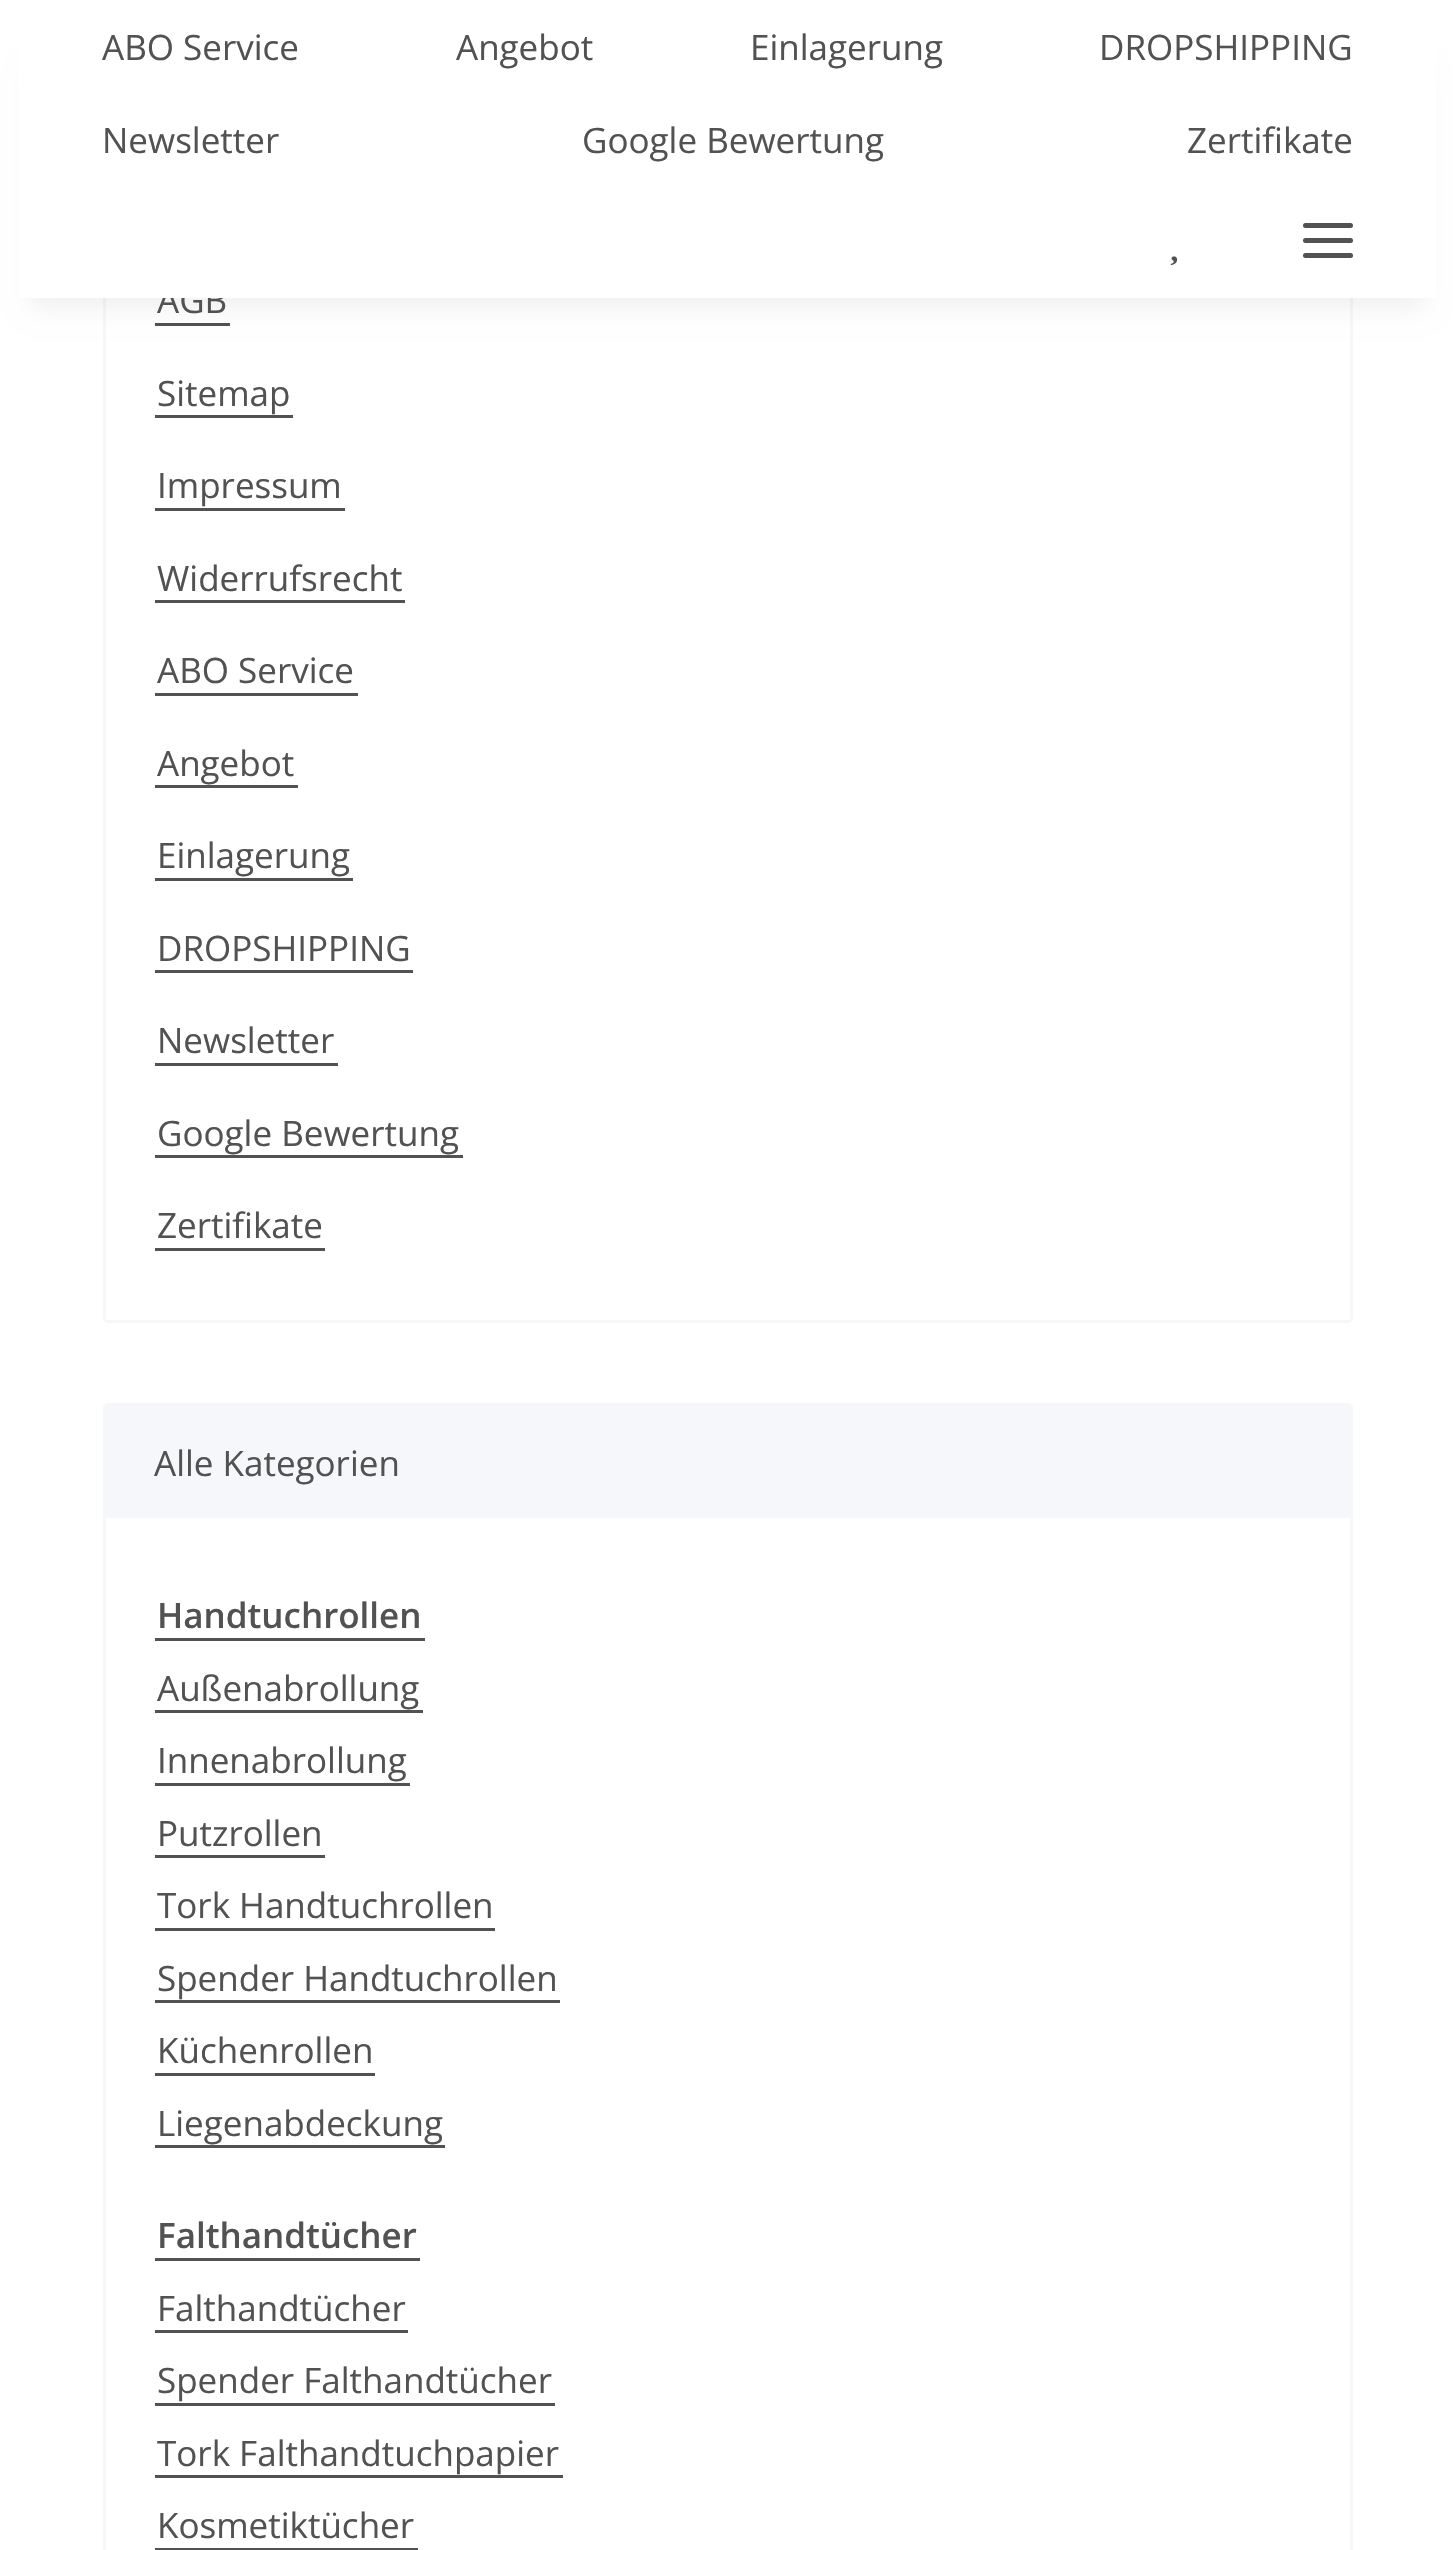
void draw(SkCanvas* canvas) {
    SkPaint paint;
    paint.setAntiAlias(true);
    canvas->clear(0xFFFFFFFF);
    paint.setStyle(SkPaint::kStroke_Style);
    paint.setStrokeWidth(3);
    paint.setColor(0xFFF5F7FA);
    canvas->drawRoundRect(SkRect::MakeXYWH(104.5f, -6.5f, 1247, 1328), 3.5f, 3.5f, paint);
    paint.setStyle(SkPaint::kFill_Style);
    paint.setColor(0xFF525252);
    canvas->drawRect(SkRect::MakeXYWH(155, 323, 75, 3), paint);
    paint.setColor(0x0F000000);
    paint.setMaskFilter(SkMaskFilter::MakeBlur(kNormal_SkBlurStyle, 11));
    canvas->drawRect(SkRect::MakeXYWH(30, 70, 1395, 238), paint);
    paint.setMaskFilter(nullptr);
    SkFont font1(fontMgr->matchFamilyStyle("Open Sans", SkFontStyle::Normal()), 35);
    font1.setSubpixel(true);
    paint.setColor(0xFF525252);
    canvas->drawString("AGB", 157, 313, font1, paint);
    paint.setColor(0xFFFFFFFF);
    canvas->drawRect(SkRect::MakeXYWH(19, 0, 1417, 298), paint);
    paint.setColor(0xFF525252);
    canvas->drawString("ABO Service", 102, 60, font1, paint);
    canvas->drawString("Angebot", 456, 60, font1, paint);
    canvas->drawString("Einlagerung", 750, 60, font1, paint);
    canvas->drawString("DROPSHIPPING", 1099, 60, font1, paint);
    canvas->drawString("Newsletter", 102, 153, font1, paint);
    canvas->drawString("Google Bewertung", 582, 153, font1, paint);
    canvas->drawString("Zertifikate", 1187, 153, font1, paint);
    canvas->drawRoundRect(SkRect::MakeXYWH(1303, 238, 50, 5), 2.5f, 2.5f, paint);
    canvas->drawRoundRect(SkRect::MakeXYWH(1303, 223, 50, 5), 2.5f, 2.5f, paint);
    canvas->drawRoundRect(SkRect::MakeXYWH(1303, 253, 50, 5), 2.5f, 2.5f, paint);
    canvas->drawImageRect(SkImages::DeferredFromEncodedData(SkData::MakeFromFileName("img1.png")), SkRect::MakeXYWH(1170, 256, 8, 10), SkSamplingOptions());
    canvas->drawString("Sitemap", 157, 406, font1, paint);
    canvas->drawRect(SkRect::MakeXYWH(155, 415, 138, 3), paint);
    canvas->drawString("Impressum", 157, 498, font1, paint);
    canvas->drawRect(SkRect::MakeXYWH(155, 508, 190, 3), paint);
    canvas->drawString("Widerrufsrecht", 157, 591, font1, paint);
    canvas->drawRect(SkRect::MakeXYWH(155, 600, 250, 3), paint);
    canvas->drawString("ABO Service", 157, 683, font1, paint);
    canvas->drawRect(SkRect::MakeXYWH(155, 693, 203, 3), paint);
    canvas->drawString("Angebot", 157, 776, font1, paint);
    canvas->drawRect(SkRect::MakeXYWH(155, 785, 143, 3), paint);
    canvas->drawString("Einlagerung", 157, 868, font1, paint);
    canvas->drawRect(SkRect::MakeXYWH(155, 878, 198, 3), paint);
    canvas->drawString("DROPSHIPPING", 157, 961, font1, paint);
    canvas->drawRect(SkRect::MakeXYWH(155, 970, 258, 3), paint);
    canvas->drawString("Newsletter", 157, 1053, font1, paint);
    canvas->drawRect(SkRect::MakeXYWH(155, 1063, 183, 3), paint);
    canvas->drawString("Google Bewertung", 157, 1146, font1, paint);
    canvas->drawRect(SkRect::MakeXYWH(155, 1155, 308, 3), paint);
    canvas->drawString("Zertifikate", 157, 1238, font1, paint);
    canvas->drawRect(SkRect::MakeXYWH(155, 1248, 170, 3), paint);
    paint.setStyle(SkPaint::kStroke_Style);
    paint.setColor(0xFFF5F7FA);
    canvas->drawRoundRect(SkRect::MakeXYWH(104.5f, 1404.5f, 1247, 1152), 3.5f, 3.5f, paint);
    paint.setStyle(SkPaint::kFill_Style);
    canvas->drawPath(SkPathBuilder().moveTo(107.5f, 1405).lineTo(1347.5f, 1405).cubicTo(1349, 1405, 1350, 1406, 1350, 1407.5f).lineTo(1350, 1518).lineTo(105, 1518).lineTo(105, 1407.5f).cubicTo(105, 1406, 106, 1405, 107.5f, 1405).close().detach(), paint);
    paint.setColor(0xFF525252);
    canvas->drawString("Alle Kategorien", 154, 1476, font1, paint);
    SkFont font2(fontMgr->matchFamilyStyle("Open Sans", SkFontStyle(600, SkFontStyle::kNormal_Width, SkFontStyle::kUpright_Slant)), 35);
    font2.setSubpixel(true);
    canvas->drawString("Handtuchrollen", 157, 1628, font2, paint);
    canvas->drawRect(SkRect::MakeXYWH(155, 1638, 270, 3), paint);
    canvas->drawString("Außenabrollung", 157, 1701, font1, paint);
    canvas->drawRect(SkRect::MakeXYWH(155, 1710, 268, 3), paint);
    canvas->drawString("Innenabrollung", 157, 1773, font1, paint);
    canvas->drawRect(SkRect::MakeXYWH(155, 1783, 255, 3), paint);
    canvas->drawString("Putzrollen", 157, 1846, font1, paint);
    canvas->drawRect(SkRect::MakeXYWH(155, 1855, 170, 3), paint);
    canvas->drawString("Tork Handtuchrollen", 157, 1918, font1, paint);
    canvas->drawRect(SkRect::MakeXYWH(155, 1928, 340, 3), paint);
    canvas->drawString("Spender Handtuchrollen", 157, 1991, font1, paint);
    canvas->drawRect(SkRect::MakeXYWH(155, 2000, 405, 3), paint);
    canvas->drawString("Küchenrollen", 157, 2063, font1, paint);
    canvas->drawRect(SkRect::MakeXYWH(155, 2073, 220, 3), paint);
    canvas->drawString("Liegenabdeckung", 157, 2136, font1, paint);
    canvas->drawRect(SkRect::MakeXYWH(155, 2145, 290, 3), paint);
    canvas->drawString("Falthandtücher", 157, 2248, font2, paint);
    canvas->drawRect(SkRect::MakeXYWH(155, 2258, 265, 3), paint);
    canvas->drawString("Falthandtücher", 157, 2321, font1, paint);
    canvas->drawRect(SkRect::MakeXYWH(155, 2330, 253, 3), paint);
    canvas->drawString("Spender Falthandtücher", 157, 2393, font1, paint);
    canvas->drawRect(SkRect::MakeXYWH(155, 2403, 400, 3), paint);
    canvas->drawString("Tork Falthandtuchpapier", 157, 2466, font1, paint);
    canvas->drawRect(SkRect::MakeXYWH(155, 2475, 408, 3), paint);
    canvas->drawString("Kosmetiktücher", 157, 2538, font1, paint);
    canvas->drawRect(SkRect::MakeXYWH(155, 2548, 263, 2), paint);
}
